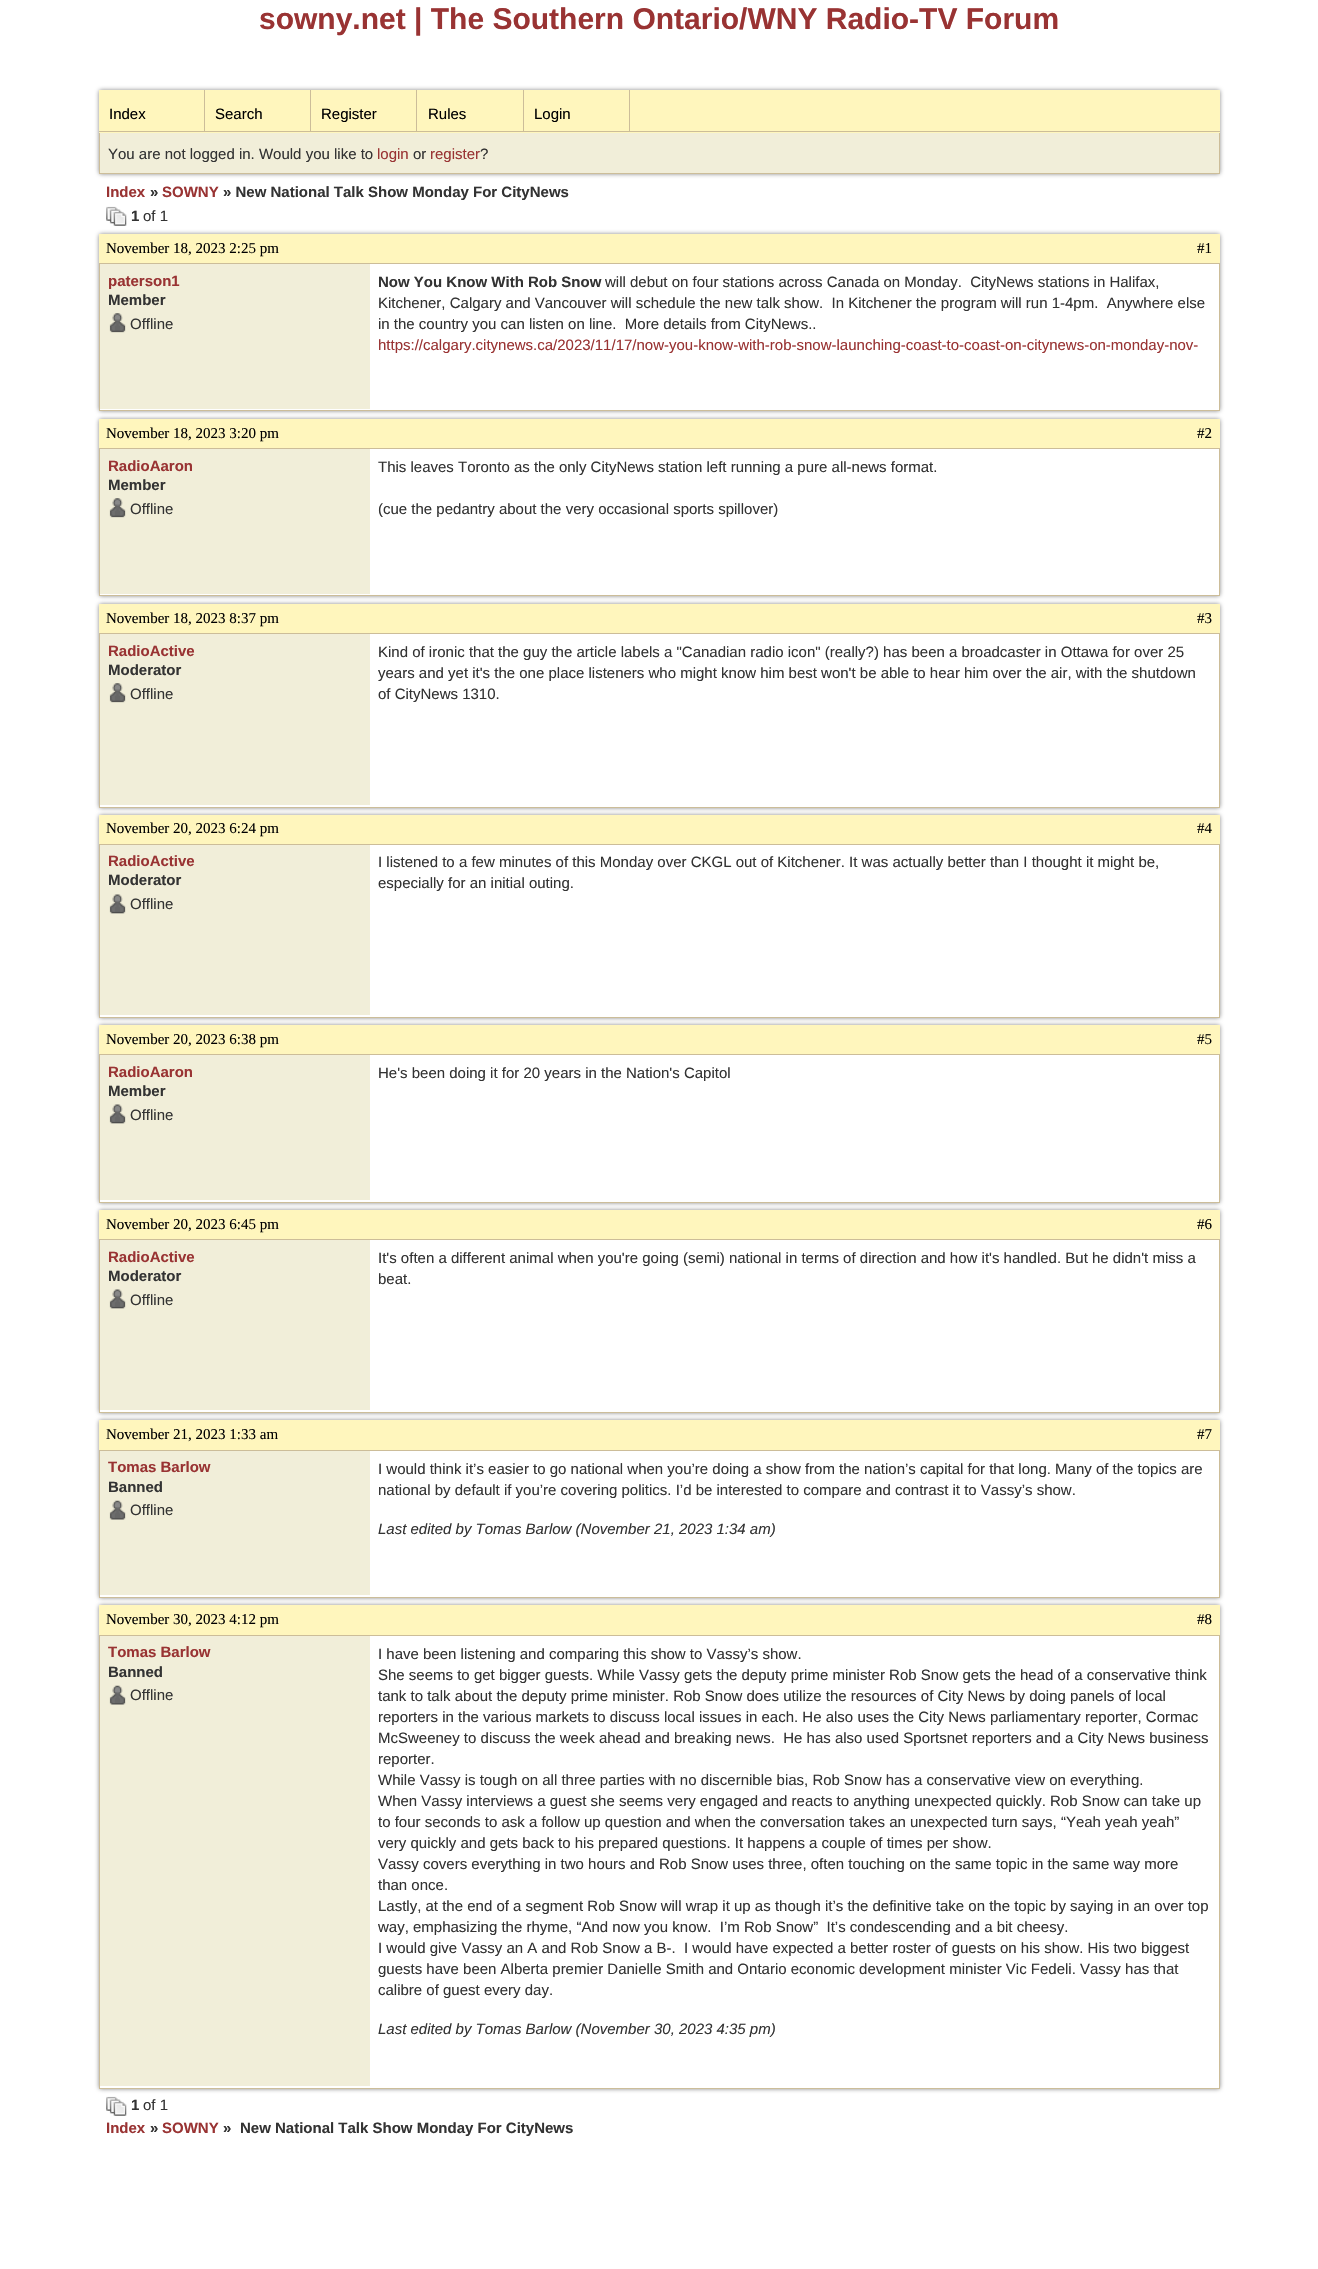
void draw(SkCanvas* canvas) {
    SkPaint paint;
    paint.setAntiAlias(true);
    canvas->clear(0xFFFFFFFF);
    SkFont font1(fontMgr->matchFamilyStyle("Liberation Sans", SkFontStyle::Bold()), 30);
    font1.setSubpixel(true);
    paint.setColor(0xFF993333);
    canvas->drawString("sowny.net | The Southern Ontario/WNY Radio-TV Forum", 259, 29, font1, paint);
    paint.setColor(0xFF888888);
    paint.setMaskFilter(SkMaskFilter::MakeBlur(kNormal_SkBlurStyle, 2));
    canvas->drawRoundRect(SkRect::MakeXYWH(99, 90, 1121, 84), 2.5f, 2.5f, paint);
    paint.setMaskFilter(nullptr);
    paint.setColor(0xFFF1EED9);
    canvas->drawRect(SkRect::MakeXYWH(100, 133, 1119, 40), paint);
    paint.setStyle(SkPaint::kStroke_Style);
    paint.setStrokeWidth(1);
    paint.setColor(0xFFCCBD99);
    canvas->drawRect(SkRect::MakeXYWH(99.5f, 90.5f, 1120, 83), paint);
    paint.setStyle(SkPaint::kFill_Style);
    paint.setColor(0xFFFFF6BD);
    canvas->drawRect(SkRect::MakeXYWH(99, 90, 1121, 43), paint);
    paint.setColor(0xFFCCBD99);
    canvas->drawRect(SkRect::MakeXYWH(99, 131, 1121, 1), paint);
    canvas->drawRect(SkRect::MakeXYWH(204, 90, 1, 41), paint);
    SkFont font2(fontMgr->matchFamilyStyle("Liberation Sans", SkFontStyle::Normal()), 15);
    font2.setSubpixel(true);
    paint.setColor(0xFF000000);
    canvas->drawString("Index", 109, 119, font2, paint);
    paint.setColor(0xFFCCBD99);
    canvas->drawRect(SkRect::MakeXYWH(310, 90, 1, 41), paint);
    paint.setColor(0xFF000000);
    canvas->drawString("Search", 215, 119, font2, paint);
    paint.setColor(0xFFCCBD99);
    canvas->drawRect(SkRect::MakeXYWH(416, 90, 1, 41), paint);
    paint.setColor(0xFF000000);
    canvas->drawString("Register", 321, 119, font2, paint);
    paint.setColor(0xFFCCBD99);
    canvas->drawRect(SkRect::MakeXYWH(523, 90, 1, 41), paint);
    paint.setColor(0xFF000000);
    canvas->drawString("Rules", 428, 119, font2, paint);
    paint.setColor(0xFFCCBD99);
    canvas->drawRect(SkRect::MakeXYWH(629, 90, 1, 41), paint);
    paint.setColor(0xFF000000);
    canvas->drawString("Login", 534, 119, font2, paint);
    paint.setColor(0xFF333333);
    canvas->drawString("You are not logged in. Would you like to", 108, 159, font2, paint);
    paint.setColor(0xFF993333);
    canvas->drawString("login", 377, 159, font2, paint);
    paint.setColor(0xFF333333);
    canvas->drawString("or", 413, 159, font2, paint);
    paint.setColor(0xFF993333);
    canvas->drawString("register", 430, 159, font2, paint);
    paint.setColor(0xFF333333);
    canvas->drawString("?", 480, 159, font2, paint);
    SkFont font3(fontMgr->matchFamilyStyle("Liberation Sans", SkFontStyle::Bold()), 15);
    font3.setSubpixel(true);
    paint.setColor(0xFF993333);
    canvas->drawString("Index", 106, 197, font3, paint);
    paint.setColor(0xFF333333);
    canvas->drawString("»", 150, 197, font3, paint);
    paint.setColor(0xFF993333);
    canvas->drawString("SOWNY", 162, 197, font3, paint);
    paint.setColor(0xFF333333);
    canvas->drawString("» New National Talk Show Monday For CityNews", 223, 197, font3, paint);
    canvas->drawImageRect(SkImages::DeferredFromEncodedData(SkData::MakeFromFileName("img1.png")), SkRect::MakeXYWH(106, 206, 21, 20), SkSamplingOptions());
    canvas->drawString("1", 131, 221, font3, paint);
    canvas->drawString("of 1", 143, 221, font2, paint);
    paint.setColor(0xFF888888);
    paint.setMaskFilter(SkMaskFilter::MakeBlur(kNormal_SkBlurStyle, 2));
    canvas->drawRoundRect(SkRect::MakeXYWH(99, 234, 1121, 177), 2.5f, 2.5f, paint);
    paint.setMaskFilter(nullptr);
    paint.setColor(0xFFFFF6BD);
    canvas->drawRect(SkRect::MakeXYWH(99, 234, 1121, 29), paint);
    SkFont font4(fontMgr->matchFamilyStyle("Liberation Serif", SkFontStyle::Normal()), 15);
    font4.setSubpixel(true);
    paint.setColor(0xFF000000);
    canvas->drawString("November 18, 2023 2:25 pm", 106, 253, font4, paint);
    canvas->drawString("#1", 1197, 253, font4, paint);
    paint.setColor(0xFFFFFFFF);
    canvas->drawRect(SkRect::MakeXYWH(99.5f, 263.5f, 1120, 147), paint);
    paint.setStyle(SkPaint::kStroke_Style);
    paint.setColor(0xFFCCBD99);
    canvas->drawRect(SkRect::MakeXYWH(99.5f, 263.5f, 1120, 147), paint);
    paint.setStyle(SkPaint::kFill_Style);
    paint.setColor(0xFFF1EED9);
    canvas->drawRect(SkRect::MakeXYWH(100, 264, 270, 145), paint);
    paint.setColor(0xFF993333);
    canvas->drawString("paterson1", 108, 286, font3, paint);
    paint.setColor(0xFF333333);
    canvas->drawString("Member", 108, 305, font3, paint);
    canvas->drawImageRect(SkImages::DeferredFromEncodedData(SkData::MakeFromFileName("img2.png")), SkRect::MakeXYWH(109, 313, 17, 20), SkSamplingOptions());
    canvas->drawString("Offline", 130, 329, font2, paint);
    canvas->drawString("Now You Know With Rob Snow", 378, 287, font3, paint);
    canvas->drawString("will debut on four stations across Canada on Monday.  CityNews stations in Halifax,", 605, 287, font2, paint);
    canvas->drawString("Kitchener, Calgary and Vancouver will schedule the new talk show.  In Kitchener the program will run 1-4pm.  Anywhere else", 378, 308, font2, paint);
    canvas->drawString("in the country you can listen on line.  More details from CityNews..", 378, 329, font2, paint);
    paint.setColor(0xFF993333);
    canvas->drawString("https://calgary.citynews.ca/2023/11/17/now-you-know-with-rob-snow-launching-coast-to-coast-on-citynews-on-monday-nov-", 378, 350, font2, paint);
    paint.setColor(0xFF888888);
    paint.setMaskFilter(SkMaskFilter::MakeBlur(kNormal_SkBlurStyle, 2));
    canvas->drawRoundRect(SkRect::MakeXYWH(99, 419, 1121, 177), 2.5f, 2.5f, paint);
    paint.setMaskFilter(nullptr);
    paint.setColor(0xFFFFF6BD);
    canvas->drawRect(SkRect::MakeXYWH(99, 419, 1121, 29), paint);
    paint.setColor(0xFF000000);
    canvas->drawString("November 18, 2023 3:20 pm", 106, 438, font4, paint);
    canvas->drawString("#2", 1197, 438, font4, paint);
    paint.setColor(0xFFFFFFFF);
    canvas->drawRect(SkRect::MakeXYWH(99.5f, 448.5f, 1120, 147), paint);
    paint.setStyle(SkPaint::kStroke_Style);
    paint.setColor(0xFFCCBD99);
    canvas->drawRect(SkRect::MakeXYWH(99.5f, 448.5f, 1120, 147), paint);
    paint.setStyle(SkPaint::kFill_Style);
    paint.setColor(0xFFF1EED9);
    canvas->drawRect(SkRect::MakeXYWH(100, 449, 270, 145), paint);
    paint.setColor(0xFF993333);
    canvas->drawString("RadioAaron", 108, 471, font3, paint);
    paint.setColor(0xFF333333);
    canvas->drawString("Member", 108, 490, font3, paint);
    canvas->drawImageRect(SkImages::DeferredFromEncodedData(SkData::MakeFromFileName("img2.png")), SkRect::MakeXYWH(109, 498, 17, 20), SkSamplingOptions());
    canvas->drawString("Offline", 130, 514, font2, paint);
    canvas->drawString("This leaves Toronto as the only CityNews station left running a pure all-news format.", 378, 472, font2, paint);
    canvas->drawString("(cue the pedantry about the very occasional sports spillover)", 378, 514, font2, paint);
    paint.setColor(0xFF888888);
    paint.setMaskFilter(SkMaskFilter::MakeBlur(kNormal_SkBlurStyle, 2));
    canvas->drawRoundRect(SkRect::MakeXYWH(99, 604, 1121, 204), 2.5f, 2.5f, paint);
    paint.setMaskFilter(nullptr);
    paint.setColor(0xFFFFF6BD);
    canvas->drawRect(SkRect::MakeXYWH(99, 604, 1121, 29), paint);
    paint.setColor(0xFF000000);
    canvas->drawString("November 18, 2023 8:37 pm", 106, 623, font4, paint);
    canvas->drawString("#3", 1197, 623, font4, paint);
    paint.setColor(0xFFFFFFFF);
    canvas->drawRect(SkRect::MakeXYWH(99.5f, 633.5f, 1120, 174), paint);
    paint.setStyle(SkPaint::kStroke_Style);
    paint.setColor(0xFFCCBD99);
    canvas->drawRect(SkRect::MakeXYWH(99.5f, 633.5f, 1120, 174), paint);
    paint.setStyle(SkPaint::kFill_Style);
    paint.setColor(0xFFF1EED9);
    canvas->drawRect(SkRect::MakeXYWH(100, 634, 270, 171), paint);
    paint.setColor(0xFF993333);
    canvas->drawString("RadioActive", 108, 656, font3, paint);
    paint.setColor(0xFF333333);
    canvas->drawString("Moderator", 108, 675, font3, paint);
    canvas->drawImageRect(SkImages::DeferredFromEncodedData(SkData::MakeFromFileName("img2.png")), SkRect::MakeXYWH(109, 683, 17, 20), SkSamplingOptions());
    canvas->drawString("Offline", 130, 699, font2, paint);
    canvas->drawString("Kind of ironic that the guy the article labels a \"Canadian radio icon\" (really?) has been a broadcaster in Ottawa for over 25", 378, 657, font2, paint);
    canvas->drawString("years and yet it's the one place listeners who might know him best won't be able to hear him over the air, with the shutdown", 378, 678, font2, paint);
    canvas->drawString("of CityNews 1310.", 378, 699, font2, paint);
    paint.setColor(0xFF888888);
    paint.setMaskFilter(SkMaskFilter::MakeBlur(kNormal_SkBlurStyle, 2));
    canvas->drawRoundRect(SkRect::MakeXYWH(99, 815, 1121, 203), 2.5f, 2.5f, paint);
    paint.setMaskFilter(nullptr);
    paint.setColor(0xFFFFF6BD);
    canvas->drawRect(SkRect::MakeXYWH(99, 815, 1121, 29), paint);
    paint.setColor(0xFF000000);
    canvas->drawString("November 20, 2023 6:24 pm", 106, 833, font4, paint);
    canvas->drawString("#4", 1197, 833, font4, paint);
    paint.setColor(0xFFFFFFFF);
    canvas->drawRect(SkRect::MakeXYWH(99.5f, 844.5f, 1120, 173), paint);
    paint.setStyle(SkPaint::kStroke_Style);
    paint.setColor(0xFFCCBD99);
    canvas->drawRect(SkRect::MakeXYWH(99.5f, 844.5f, 1120, 173), paint);
    paint.setStyle(SkPaint::kFill_Style);
    paint.setColor(0xFFF1EED9);
    canvas->drawRect(SkRect::MakeXYWH(100, 845, 270, 170), paint);
    paint.setColor(0xFF993333);
    canvas->drawString("RadioActive", 108, 866, font3, paint);
    paint.setColor(0xFF333333);
    canvas->drawString("Moderator", 108, 885, font3, paint);
    canvas->drawImageRect(SkImages::DeferredFromEncodedData(SkData::MakeFromFileName("img3.png")), SkRect::MakeXYWH(109, 894, 17, 20), SkSamplingOptions());
    canvas->drawString("Offline", 130, 909, font2, paint);
    canvas->drawString("I listened to a few minutes of this Monday over CKGL out of Kitchener. It was actually better than I thought it might be,", 378, 867, font2, paint);
    canvas->drawString("especially for an initial outing.", 378, 888, font2, paint);
    paint.setColor(0xFF888888);
    paint.setMaskFilter(SkMaskFilter::MakeBlur(kNormal_SkBlurStyle, 2));
    canvas->drawRoundRect(SkRect::MakeXYWH(99, 1025, 1121, 178), 2.5f, 2.5f, paint);
    paint.setMaskFilter(nullptr);
    paint.setColor(0xFFFFF6BD);
    canvas->drawRect(SkRect::MakeXYWH(99, 1025, 1121, 29), paint);
    paint.setColor(0xFF000000);
    canvas->drawString("November 20, 2023 6:38 pm", 106, 1044, font4, paint);
    canvas->drawString("#5", 1197, 1044, font4, paint);
    paint.setColor(0xFFFFFFFF);
    canvas->drawRect(SkRect::MakeXYWH(99.5f, 1054.5f, 1120, 148), paint);
    paint.setStyle(SkPaint::kStroke_Style);
    paint.setColor(0xFFCCBD99);
    canvas->drawRect(SkRect::MakeXYWH(99.5f, 1054.5f, 1120, 148), paint);
    paint.setStyle(SkPaint::kFill_Style);
    paint.setColor(0xFFF1EED9);
    canvas->drawRect(SkRect::MakeXYWH(100, 1055, 270, 145), paint);
    paint.setColor(0xFF993333);
    canvas->drawString("RadioAaron", 108, 1077, font3, paint);
    paint.setColor(0xFF333333);
    canvas->drawString("Member", 108, 1096, font3, paint);
    canvas->drawImageRect(SkImages::DeferredFromEncodedData(SkData::MakeFromFileName("img3.png")), SkRect::MakeXYWH(109, 1104, 17, 20), SkSamplingOptions());
    canvas->drawString("Offline", 130, 1120, font2, paint);
    canvas->drawString("He's been doing it for 20 years in the Nation's Capitol", 378, 1078, font2, paint);
    paint.setColor(0xFF888888);
    paint.setMaskFilter(SkMaskFilter::MakeBlur(kNormal_SkBlurStyle, 2));
    canvas->drawRoundRect(SkRect::MakeXYWH(99, 1210, 1121, 203), 2.5f, 2.5f, paint);
    paint.setMaskFilter(nullptr);
    paint.setColor(0xFFFFF6BD);
    canvas->drawRect(SkRect::MakeXYWH(99, 1210, 1121, 29), paint);
    paint.setColor(0xFF000000);
    canvas->drawString("November 20, 2023 6:45 pm", 106, 1229, font4, paint);
    canvas->drawString("#6", 1197, 1229, font4, paint);
    paint.setColor(0xFFFFFFFF);
    canvas->drawRect(SkRect::MakeXYWH(99.5f, 1239.5f, 1120, 173), paint);
    paint.setStyle(SkPaint::kStroke_Style);
    paint.setColor(0xFFCCBD99);
    canvas->drawRect(SkRect::MakeXYWH(99.5f, 1239.5f, 1120, 173), paint);
    paint.setStyle(SkPaint::kFill_Style);
    paint.setColor(0xFFF1EED9);
    canvas->drawRect(SkRect::MakeXYWH(100, 1240, 270, 170), paint);
    paint.setColor(0xFF993333);
    canvas->drawString("RadioActive", 108, 1262, font3, paint);
    paint.setColor(0xFF333333);
    canvas->drawString("Moderator", 108, 1281, font3, paint);
    canvas->drawImageRect(SkImages::DeferredFromEncodedData(SkData::MakeFromFileName("img3.png")), SkRect::MakeXYWH(109, 1289, 17, 20), SkSamplingOptions());
    canvas->drawString("Offline", 130, 1305, font2, paint);
    canvas->drawString("It's often a different animal when you're going (semi) national in terms of direction and how it's handled. But he didn't miss a", 378, 1263, font2, paint);
    canvas->drawString("beat.", 378, 1284, font2, paint);
    paint.setColor(0xFF888888);
    paint.setMaskFilter(SkMaskFilter::MakeBlur(kNormal_SkBlurStyle, 2));
    canvas->drawRoundRect(SkRect::MakeXYWH(99, 1420, 1121, 178), 2.5f, 2.5f, paint);
    paint.setMaskFilter(nullptr);
    paint.setColor(0xFFFFF6BD);
    canvas->drawRect(SkRect::MakeXYWH(99, 1420, 1121, 30), paint);
    paint.setColor(0xFF000000);
    canvas->drawString("November 21, 2023 1:33 am", 106, 1439, font4, paint);
    canvas->drawString("#7", 1197, 1439, font4, paint);
    paint.setColor(0xFFFFFFFF);
    canvas->drawRect(SkRect::MakeXYWH(99.5f, 1450.5f, 1120, 147), paint);
    paint.setStyle(SkPaint::kStroke_Style);
    paint.setColor(0xFFCCBD99);
    canvas->drawRect(SkRect::MakeXYWH(99.5f, 1450.5f, 1120, 147), paint);
    paint.setStyle(SkPaint::kFill_Style);
    paint.setColor(0xFFF1EED9);
    canvas->drawRect(SkRect::MakeXYWH(100, 1451, 270, 144), paint);
    paint.setColor(0xFF993333);
    canvas->drawString("Tomas Barlow", 108, 1472, font3, paint);
    paint.setColor(0xFF333333);
    canvas->drawString("Banned", 108, 1492, font3, paint);
    canvas->drawImageRect(SkImages::DeferredFromEncodedData(SkData::MakeFromFileName("img4.png")), SkRect::MakeXYWH(109, 1500, 17, 20), SkSamplingOptions());
    canvas->drawString("Offline", 130, 1515, font2, paint);
    canvas->drawString("I would think it’s easier to go national when you’re doing a show from the nation’s capital for that long. Many of the topics are", 378, 1474, font2, paint);
    canvas->drawString("national by default if you’re covering politics. I’d be interested to compare and contrast it to Vassy’s show.", 378, 1495, font2, paint);
    SkFont font5(fontMgr->matchFamilyStyle("Liberation Sans", SkFontStyle::Italic()), 15);
    font5.setSubpixel(true);
    canvas->drawString("Last edited by Tomas Barlow (November 21, 2023 1:34 am)", 378, 1534, font5, paint);
    paint.setColor(0xFF888888);
    paint.setMaskFilter(SkMaskFilter::MakeBlur(kNormal_SkBlurStyle, 2));
    canvas->drawRoundRect(SkRect::MakeXYWH(99, 1605, 1121, 484), 2.5f, 2.5f, paint);
    paint.setMaskFilter(nullptr);
    paint.setColor(0xFFFFF6BD);
    canvas->drawRect(SkRect::MakeXYWH(99, 1605, 1121, 30), paint);
    paint.setColor(0xFF000000);
    canvas->drawString("November 30, 2023 4:12 pm", 106, 1624, font4, paint);
    canvas->drawString("#8", 1197, 1624, font4, paint);
    paint.setColor(0xFFFFFFFF);
    canvas->drawRect(SkRect::MakeXYWH(99.5f, 1635.5f, 1120, 453), paint);
    paint.setStyle(SkPaint::kStroke_Style);
    paint.setColor(0xFFCCBD99);
    canvas->drawRect(SkRect::MakeXYWH(99.5f, 1635.5f, 1120, 453), paint);
    paint.setStyle(SkPaint::kFill_Style);
    paint.setColor(0xFFF1EED9);
    canvas->drawRect(SkRect::MakeXYWH(100, 1636, 270, 450), paint);
    paint.setColor(0xFF993333);
    canvas->drawString("Tomas Barlow", 108, 1657, font3, paint);
    paint.setColor(0xFF333333);
    canvas->drawString("Banned", 108, 1677, font3, paint);
    canvas->drawImageRect(SkImages::DeferredFromEncodedData(SkData::MakeFromFileName("img4.png")), SkRect::MakeXYWH(109, 1685, 17, 20), SkSamplingOptions());
    canvas->drawString("Offline", 130, 1700, font2, paint);
    canvas->drawString("I have been listening and comparing this show to Vassy’s show.", 378, 1659, font2, paint);
    canvas->drawString("She seems to get bigger guests. While Vassy gets the deputy prime minister Rob Snow gets the head of a conservative think", 378, 1680, font2, paint);
    canvas->drawString("tank to talk about the deputy prime minister. Rob Snow does utilize the resources of City News by doing panels of local", 378, 1701, font2, paint);
    canvas->drawString("reporters in the various markets to discuss local issues in each. He also uses the City News parliamentary reporter, Cormac", 378, 1722, font2, paint);
    canvas->drawString("McSweeney to discuss the week ahead and breaking news.  He has also used Sportsnet reporters and a City News business", 378, 1743, font2, paint);
    canvas->drawString("reporter.", 378, 1764, font2, paint);
    canvas->drawString("While Vassy is tough on all three parties with no discernible bias, Rob Snow has a conservative view on everything.", 378, 1785, font2, paint);
    canvas->drawString("When Vassy interviews a guest she seems very engaged and reacts to anything unexpected quickly. Rob Snow can take up", 378, 1806, font2, paint);
    canvas->drawString("to four seconds to ask a follow up question and when the conversation takes an unexpected turn says, “Yeah yeah yeah”", 378, 1827, font2, paint);
    canvas->drawString("very quickly and gets back to his prepared questions. It happens a couple of times per show.", 378, 1848, font2, paint);
    canvas->drawString("Vassy covers everything in two hours and Rob Snow uses three, often touching on the same topic in the same way more", 378, 1869, font2, paint);
    canvas->drawString("than once.", 378, 1890, font2, paint);
    canvas->drawString("Lastly, at the end of a segment Rob Snow will wrap it up as though it’s the definitive take on the topic by saying in an over top", 378, 1911, font2, paint);
    canvas->drawString("way, emphasizing the rhyme, “And now you know.  I’m Rob Snow”  It’s condescending and a bit cheesy.", 378, 1932, font2, paint);
    canvas->drawString("I would give Vassy an A and Rob Snow a B-.  I would have expected a better roster of guests on his show. His two biggest", 378, 1953, font2, paint);
    canvas->drawString("guests have been Alberta premier Danielle Smith and Ontario economic development minister Vic Fedeli. Vassy has that", 378, 1974, font2, paint);
    canvas->drawString("calibre of guest every day.", 378, 1995, font2, paint);
    canvas->drawString("Last edited by Tomas Barlow (November 30, 2023 4:35 pm)", 378, 2034, font5, paint);
    canvas->drawImageRect(SkImages::DeferredFromEncodedData(SkData::MakeFromFileName("img1.png")), SkRect::MakeXYWH(106, 2096, 21, 20), SkSamplingOptions());
    canvas->drawString("1", 131, 2110, font3, paint);
    canvas->drawString("of 1", 143, 2110, font2, paint);
    paint.setColor(0xFF993333);
    canvas->drawString("Index", 106, 2133, font3, paint);
    paint.setColor(0xFF333333);
    canvas->drawString("»", 150, 2133, font3, paint);
    paint.setColor(0xFF993333);
    canvas->drawString("SOWNY", 162, 2133, font3, paint);
    paint.setColor(0xFF333333);
    canvas->drawString("»", 223, 2133, font3, paint);
    canvas->drawString("New National Talk Show Monday For CityNews", 240, 2133, font3, paint);
}
